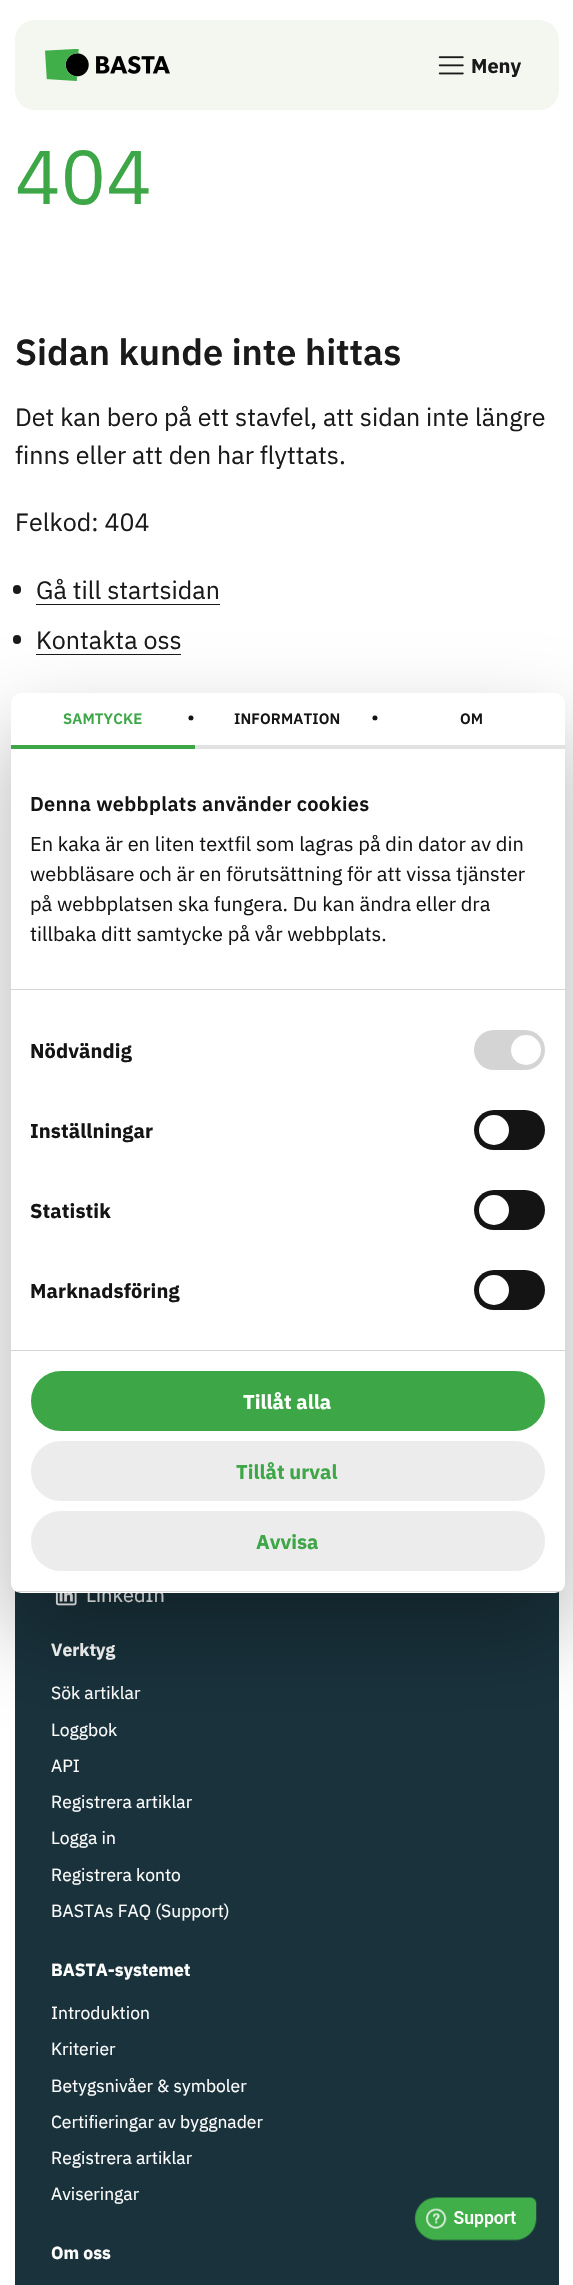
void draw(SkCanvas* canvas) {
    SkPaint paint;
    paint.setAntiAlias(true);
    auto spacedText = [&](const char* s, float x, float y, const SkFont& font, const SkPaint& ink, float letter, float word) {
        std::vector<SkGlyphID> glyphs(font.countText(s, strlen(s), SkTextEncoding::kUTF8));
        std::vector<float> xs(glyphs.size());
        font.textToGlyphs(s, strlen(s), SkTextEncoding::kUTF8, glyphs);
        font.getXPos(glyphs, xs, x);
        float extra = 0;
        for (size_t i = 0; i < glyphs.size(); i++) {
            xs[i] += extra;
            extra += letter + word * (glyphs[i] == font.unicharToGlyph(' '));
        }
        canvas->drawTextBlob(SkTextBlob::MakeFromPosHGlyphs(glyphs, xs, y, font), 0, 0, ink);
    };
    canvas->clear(0xFFFFFFFF);
    paint.setColor(0xFFF3F7F0);
    canvas->drawRoundRect(SkRect::MakeXYWH(15, 20, 544, 90), 20, 20, paint);
    canvas->drawImageRect(SkImages::DeferredFromEncodedData(SkData::MakeFromFileName("img1.png")), SkRect::MakeXYWH(45, 49, 125, 32), SkSamplingOptions());
    canvas->drawImageRect(SkImages::DeferredFromEncodedData(SkData::MakeFromFileName("img2.png")), SkRect::MakeXYWH(438, 56, 26, 19), SkSamplingOptions());
    SkFont font1(fontMgr->matchFamilyStyle("IBM Plex Sans", SkFontStyle::Bold()), 20);
    font1.setSubpixel(true);
    paint.setColor(0xFF1A1A1A);
    canvas->drawString("Meny", 471, 73, font1, paint);
    SkFont font2(fontMgr->matchFamilyStyle("IBM Plex Sans", SkFontStyle::Normal()), 76);
    font2.setSubpixel(true);
    paint.setColor(0xFF3DA646);
    canvas->drawString("404", 15, 204, font2, paint);
    SkFont font3(fontMgr->matchFamilyStyle("IBM Plex Sans", SkFontStyle(600, SkFontStyle::kNormal_Width, SkFontStyle::kUpright_Slant)), 36.1f);
    font3.setSubpixel(true);
    paint.setColor(0xFF1A1A1A);
    canvas->drawString("Sidan kunde inte hittas", 15, 365, font3, paint);
    SkFont font4(fontMgr->matchFamilyStyle("IBM Plex Sans", SkFontStyle::Normal()), 25);
    font4.setSubpixel(true);
    canvas->drawString("Det kan bero på ett stavfel, att sidan inte längre", 15, 426, font4, paint);
    canvas->drawString("finns eller att den har flyttats.", 15, 464, font4, paint);
    canvas->drawString("Felkod: 404", 15, 531, font4, paint);
    canvas->drawRoundRect(SkRect::MakeXYWH(13, 585, 8, 9), 4, 4, paint);
    canvas->drawString("Gå till startsidan", 36, 599, font4, paint);
    canvas->drawRect(SkRect::MakeXYWH(36, 604, 184, 1), paint);
    canvas->drawRoundRect(SkRect::MakeXYWH(13, 635, 8, 9), 4, 4, paint);
    canvas->drawString("Kontakta oss", 36, 649, font4, paint);
    canvas->drawRect(SkRect::MakeXYWH(36, 654, 145, 1), paint);
    paint.setColor(0xFF19323C);
    canvas->drawRect(SkRect::MakeXYWH(15, 1591, 544, 694), paint);
    canvas->drawImageRect(SkImages::DeferredFromEncodedData(SkData::MakeFromFileName("img3.png")), SkRect::MakeXYWH(55, 1593, 22, 13), SkSamplingOptions());
    SkFont font5(fontMgr->matchFamilyStyle("IBM Plex Sans", SkFontStyle::Normal()), 20);
    font5.setSubpixel(true);
    paint.setColor(0xFFFFFFFF);
    canvas->drawString("LinkedIn", 86, 1602, font5, paint);
    SkFont font6(fontMgr->matchFamilyStyle("IBM Plex Sans", SkFontStyle::Bold()), 17.5f);
    font6.setSubpixel(true);
    canvas->drawString("Verktyg", 51, 1656, font6, paint);
    SkFont font7(fontMgr->matchFamilyStyle("IBM Plex Sans", SkFontStyle::Normal()), 17.5f);
    font7.setSubpixel(true);
    canvas->drawString("Sök artiklar", 51, 1699, font7, paint);
    canvas->drawString("Loggbok", 51, 1736, font7, paint);
    canvas->drawString("API", 51, 1772, font7, paint);
    canvas->drawString("Registrera artiklar", 51, 1808, font7, paint);
    canvas->drawString("Logga in", 51, 1844, font7, paint);
    canvas->drawString("Registrera konto", 51, 1881, font7, paint);
    canvas->drawString("BASTAs FAQ (Support)", 51, 1917, font7, paint);
    canvas->drawString("BASTA-systemet", 51, 1976, font6, paint);
    canvas->drawString("Introduktion", 51, 2019, font7, paint);
    canvas->drawString("Kriterier", 51, 2055, font7, paint);
    canvas->drawString("Betygsnivåer & symboler", 51, 2092, font7, paint);
    canvas->drawString("Certifieringar av byggnader", 51, 2128, font7, paint);
    canvas->drawString("Registrera artiklar", 51, 2164, font7, paint);
    canvas->drawString("Aviseringar", 51, 2200, font7, paint);
    canvas->drawString("Om oss", 51, 2259, font6, paint);
    paint.setColor(0x4D000000);
    paint.setMaskFilter(SkMaskFilter::MakeBlur(kNormal_SkBlurStyle, 42.5f));
    canvas->drawRoundRect(SkRect::MakeXYWH(11, 733, 554, 900), 10, 10, paint);
    paint.setMaskFilter(nullptr);
    paint.setColor(0xFFFFFFFF);
    canvas->drawRoundRect(SkRect::MakeXYWH(11, 693, 554, 900), 10, 10, paint);
    paint.setColor(0xFF3DA646);
    canvas->drawRect(SkRect::MakeXYWH(11, 745, 184, 4), paint);
    SkFont font8(fontMgr->matchFamilyStyle("IBM Plex Sans", SkFontStyle(600, SkFontStyle::kNormal_Width, SkFontStyle::kUpright_Slant)), 15);
    font8.setSubpixel(true);
    spacedText("SAMTYCKE", 63, 724, font8, paint, 0.1f, 0);
    paint.setColor(0xFF141414);
    spacedText("•", 187, 724, font5, paint, 0.1f, 0);
    paint.setColor(0xFFE2E2E2);
    canvas->drawRect(SkRect::MakeXYWH(195, 745, 370, 4), paint);
    paint.setColor(0xFF141414);
    spacedText("INFORMATION", 234, 724, font8, paint, 0.1f, 0);
    spacedText("•", 371, 724, font5, paint, 0.1f, 0);
    spacedText("OM", 460, 724, font8, paint, 0.1f, 0);
    paint.setColor(0xFFD6D6D6);
    canvas->drawRect(SkRect::MakeXYWH(11, 989, 554, 1), paint);
    SkFont font9(fontMgr->matchFamilyStyle("IBM Plex Sans", SkFontStyle(600, SkFontStyle::kNormal_Width, SkFontStyle::kUpright_Slant)), 20);
    font9.setSubpixel(true);
    paint.setColor(0xFF141414);
    spacedText("Denna webbplats använder cookies", 30, 811, font9, paint, 0.3f, 0);
    canvas->drawString("En kaka är en liten textfil som lagras på din dator av din", 30, 851, font5, paint);
    canvas->drawString("webbläsare och är en förutsättning för att vissa tjänster", 30, 881, font5, paint);
    canvas->drawString("på webbplatsen ska fungera. Du kan ändra eller dra", 30, 911, font5, paint);
    canvas->drawString("tillbaka ditt samtycke på vår webbplats.", 30, 941, font5, paint);
    paint.setColor(0xFFD6D6D6);
    canvas->drawRect(SkRect::MakeXYWH(11, 1350, 554, 1), paint);
    paint.setColor(0xFF141414);
    spacedText("Nödvändig", 30, 1058, font1, paint, 0.1f, 0);
    paint.setColor(0xFFD4D4D4);
    canvas->drawRoundRect(SkRect::MakeXYWH(474, 1030, 71, 40), 20, 20, paint);
    paint.setColor(0xFFFFFFFF);
    canvas->drawCircle(526, 1050, 15, paint);
    paint.setColor(0xFF141414);
    spacedText("Inställningar", 30, 1138, font1, paint, 0.1f, 0);
    canvas->drawRoundRect(SkRect::MakeXYWH(474, 1110, 71, 40), 20, 20, paint);
    paint.setColor(0xFFFFFFFF);
    canvas->drawCircle(494, 1130, 15, paint);
    paint.setColor(0xFF141414);
    spacedText("Statistik", 30, 1218, font1, paint, 0.1f, 0);
    canvas->drawRoundRect(SkRect::MakeXYWH(474, 1190, 71, 40), 20, 20, paint);
    paint.setColor(0xFFFFFFFF);
    canvas->drawCircle(494, 1210, 15, paint);
    paint.setColor(0xFF141414);
    spacedText("Marknadsföring", 30, 1298, font1, paint, 0.1f, 0);
    canvas->drawRoundRect(SkRect::MakeXYWH(474, 1270, 71, 40), 20, 20, paint);
    paint.setColor(0xFFFFFFFF);
    canvas->drawCircle(494, 1290, 15, paint);
    canvas->save();
    canvas->clipPath(SkPathBuilder().moveTo(21, 693).lineTo(555, 693).cubicTo(560.5f, 693, 565, 697.5f, 565, 703).lineTo(565, 1583).cubicTo(565, 1588.5f, 560.5f, 1593, 555, 1593).lineTo(21, 1593).cubicTo(15.5f, 1593, 11, 1588.5f, 11, 1583).lineTo(11, 703).cubicTo(11, 697.5f, 15.5f, 693, 21, 693).close().detach(), true);
    paint.setColor(0xFFD6D6D6);
    canvas->drawRect(SkRect::MakeXYWH(11, 1591, 554, 1), paint);
    canvas->restore();
    paint.setColor(0xFF3DA646);
    canvas->drawRoundRect(SkRect::MakeXYWH(32.5f, 1372.5f, 511, 57), 28.5f, 28.5f, paint);
    paint.setStyle(SkPaint::kStroke_Style);
    paint.setStrokeWidth(3);
    canvas->drawRoundRect(SkRect::MakeXYWH(32.5f, 1372.5f, 511, 57), 28.5f, 28.5f, paint);
    paint.setStyle(SkPaint::kFill_Style);
    paint.setColor(0xFFFFFFFF);
    canvas->drawString("Tillåt alla", 243, 1409, font1, paint);
    paint.setColor(0xFFECECEC);
    canvas->drawRoundRect(SkRect::MakeXYWH(32.5f, 1442.5f, 511, 57), 28.5f, 28.5f, paint);
    paint.setStyle(SkPaint::kStroke_Style);
    canvas->drawRoundRect(SkRect::MakeXYWH(32.5f, 1442.5f, 511, 57), 28.5f, 28.5f, paint);
    paint.setStyle(SkPaint::kFill_Style);
    paint.setColor(0xFF3DA646);
    canvas->drawString("Tillåt urval", 236, 1479, font1, paint);
    paint.setColor(0xFFECECEC);
    canvas->drawRoundRect(SkRect::MakeXYWH(32.5f, 1512.5f, 511, 57), 28.5f, 28.5f, paint);
    paint.setStyle(SkPaint::kStroke_Style);
    canvas->drawRoundRect(SkRect::MakeXYWH(32.5f, 1512.5f, 511, 57), 28.5f, 28.5f, paint);
    paint.setStyle(SkPaint::kFill_Style);
    paint.setColor(0xFF3DA646);
    canvas->drawString("Avvisa", 256, 1549, font1, paint);
    canvas->drawImageRect(SkImages::DeferredFromEncodedData(SkData::MakeFromFileName("img4.png")), SkRect::MakeXYWH(414, 2197, 123, 44), SkSamplingOptions());
}
